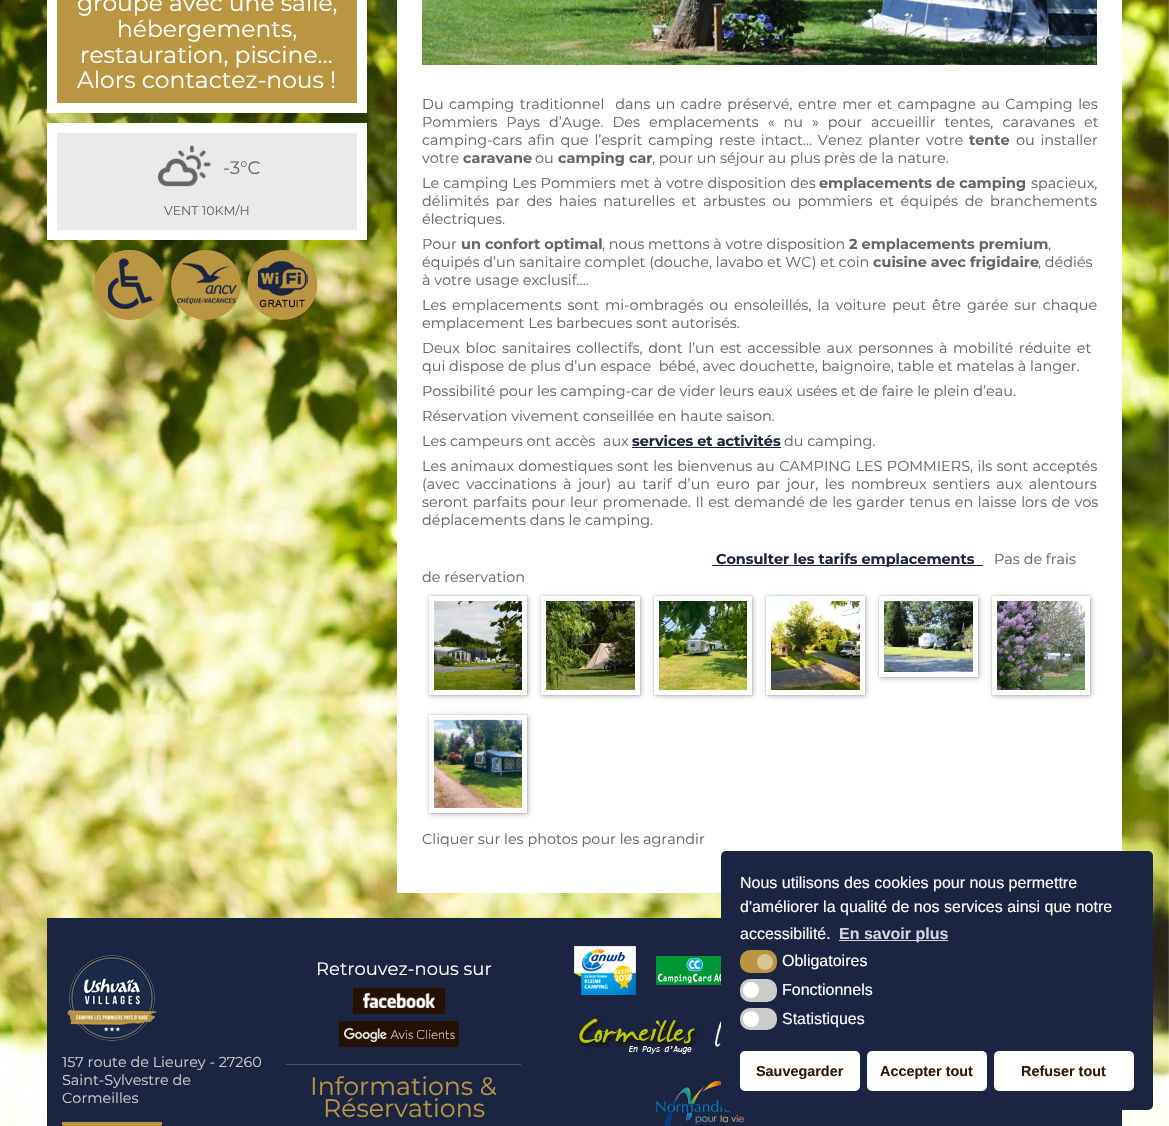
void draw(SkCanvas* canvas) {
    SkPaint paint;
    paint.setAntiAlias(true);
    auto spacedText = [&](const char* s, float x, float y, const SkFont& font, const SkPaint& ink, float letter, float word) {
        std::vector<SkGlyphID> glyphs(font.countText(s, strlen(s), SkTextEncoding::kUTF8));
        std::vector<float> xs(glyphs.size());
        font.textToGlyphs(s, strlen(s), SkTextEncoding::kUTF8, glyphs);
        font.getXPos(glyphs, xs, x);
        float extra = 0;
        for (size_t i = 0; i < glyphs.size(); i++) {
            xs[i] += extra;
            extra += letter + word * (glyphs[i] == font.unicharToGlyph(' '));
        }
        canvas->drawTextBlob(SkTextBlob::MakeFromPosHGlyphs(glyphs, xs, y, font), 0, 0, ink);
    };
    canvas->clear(0xFFFFFFFF);
    canvas->drawImageRect(SkImages::DeferredFromEncodedData(SkData::MakeFromFileName("img1.png")), SkRect::MakeXYWH(0, 0, 1169, 1126), SkSamplingOptions());
    paint.setColor(0xFFBA9542);
    canvas->drawRect(SkRect::MakeXYWH(52, -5, 310, 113), paint);
    paint.setStyle(SkPaint::kStroke_Style);
    paint.setStrokeWidth(10);
    paint.setColor(0xFFFFFFFF);
    canvas->drawRect(SkRect::MakeXYWH(52, -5, 310, 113), paint);
    SkFont font1(fontMgr->matchFamilyStyle("Montserrat", SkFontStyle::Normal()), 23.4f);
    font1.setSubpixel(true);
    paint.setStyle(SkPaint::kFill_Style);
    canvas->drawString("groupe avec une salle,", 77, 11, font1, paint);
    canvas->drawString("hébergements,", 117, 37, font1, paint);
    canvas->drawString("restauration, piscine…", 80, 63, font1, paint);
    canvas->drawString("Alors contactez-nous !", 77, 88, font1, paint);
    paint.setColor(0xFFE9EAE9);
    canvas->drawRect(SkRect::MakeXYWH(52, 128, 310, 107), paint);
    paint.setStyle(SkPaint::kStroke_Style);
    paint.setColor(0xFFFFFFFF);
    canvas->drawRect(SkRect::MakeXYWH(52, 128, 310, 107), paint);
    canvas->drawImageRect(SkImages::DeferredFromEncodedData(SkData::MakeFromFileName("img2.png")), SkRect::MakeXYWH(158, 145, 53, 42), SkSamplingOptions());
    SkFont font2(fontMgr->matchFamilyStyle("Montserrat", SkFontStyle::Normal()), 18);
    font2.setSubpixel(true);
    paint.setStyle(SkPaint::kFill_Style);
    paint.setColor(0xFF666666);
    canvas->drawString("-3°C", 223, 174, font2, paint);
    SkFont font3(fontMgr->matchFamilyStyle("Montserrat", SkFontStyle::Normal()), 12.5f);
    font3.setSubpixel(true);
    canvas->drawString("VENT 10KM/H", 164, 215, font3, paint);
    canvas->drawImageRect(SkImages::DeferredFromEncodedData(SkData::MakeFromFileName("img3.png")), SkRect::MakeXYWH(94, 250, 71, 70), SkSamplingOptions());
    canvas->drawImageRect(SkImages::DeferredFromEncodedData(SkData::MakeFromFileName("img4.png")), SkRect::MakeXYWH(171, 250, 70, 70), SkSamplingOptions());
    canvas->drawImageRect(SkImages::DeferredFromEncodedData(SkData::MakeFromFileName("img5.png")), SkRect::MakeXYWH(247, 250, 71, 70), SkSamplingOptions());
    paint.setColor(0xFFFFFFFF);
    canvas->drawRect(SkRect::MakeXYWH(397, 0, 725, 893), paint);
    canvas->drawImageRect(SkImages::DeferredFromEncodedData(SkData::MakeFromFileName("img6.png")), SkRect::MakeXYWH(422, 0, 675, 65), SkSamplingOptions());
    SkFont font4(fontMgr->matchFamilyStyle("Montserrat", SkFontStyle::Normal()), 14.4f);
    font4.setSubpixel(true);
    paint.setColor(0xFF666666);
    spacedText("Du camping traditionnel  dans un cadre préservé, entre mer et campagne au Camping les", 422, 109, font4, paint, 0, 1.75f);
    spacedText("Pommiers Pays d’Auge. Des emplacements « nu » pour accueillir tentes, caravanes et", 422, 127, font4, paint, 0, 5.25f);
    spacedText("camping-cars afin que l’esprit camping reste intact… Venez planter votre", 422, 145, font4, paint, 0, 2);
    SkFont font5(fontMgr->matchFamilyStyle("Montserrat", SkFontStyle::Bold()), 14.4f);
    font5.setSubpixel(true);
    canvas->drawString("tente", 969, 145, font5, paint);
    spacedText("ou installer", 1016, 145, font4, paint, 0, 2);
    canvas->drawString("votre", 422, 163, font4, paint);
    canvas->drawString("caravane", 463, 163, font5, paint);
    canvas->drawString("ou", 535, 163, font4, paint);
    canvas->drawString("camping car", 558, 163, font5, paint);
    canvas->drawString(", pour un séjour au plus près de la nature.", 652, 163, font4, paint);
    spacedText("Le camping Les Pommiers met à votre disposition des", 422, 188, font4, paint, 0, 0.25f);
    canvas->drawString("emplacements de camping", 819, 188, font5, paint);
    canvas->drawString("spacieux,", 1031, 188, font4, paint);
    spacedText("délimités par des haies naturelles et arbustes ou pommiers et équipés de branchements", 422, 206, font4, paint, 0, 3);
    canvas->drawString("électriques.", 422, 224, font4, paint);
    canvas->drawString("Pour", 422, 249, font4, paint);
    canvas->drawString("un confort optimal", 461, 249, font5, paint);
    canvas->drawString(", nous mettons à votre disposition", 602, 249, font4, paint);
    canvas->drawString("2 emplacements premium", 849, 249, font5, paint);
    canvas->drawString(",", 1048, 249, font4, paint);
    canvas->drawString("équipés d’un sanitaire complet (douche, lavabo et WC) et coin", 422, 267, font4, paint);
    canvas->drawString("cuisine avec frigidaire", 873, 267, font5, paint);
    canvas->drawString(", dédiés", 1038, 267, font4, paint);
    canvas->drawString("à votre usage exclusif….", 422, 285, font4, paint);
    spacedText("Les emplacements sont mi-ombragés ou ensoleillés, la voiture peut être garée sur chaque", 422, 310, font4, paint, 0, 2.1f);
    canvas->drawString("emplacement Les barbecues sont autorisés.", 422, 328, font4, paint);
    spacedText("Deux bloc sanitaires collectifs, dont l’un est accessible aux personnes à mobilité réduite et", 422, 353, font4, paint, 0, 1.8f);
    canvas->drawString("qui dispose de plus d’un espace  bébé, avec douchette, baignoire, table et matelas à langer.", 422, 371, font4, paint);
    canvas->drawString("Possibilité pour les camping-car de vider leurs eaux usées et de faire le plein d’eau.", 422, 396, font4, paint);
    canvas->drawString("Réservation vivement conseillée en haute saison.", 422, 421, font4, paint);
    canvas->drawString("Les campeurs ont accès  aux", 422, 446, font4, paint);
    paint.setColor(0xFF1B2542);
    canvas->drawString("services et activités", 632, 446, font5, paint);
    canvas->drawRect(SkRect::MakeXYWH(632, 447, 149, 1), paint);
    paint.setColor(0xFF666666);
    canvas->drawString("du camping.", 784, 446, font4, paint);
    spacedText("Les animaux domestiques sont les bienvenus au CAMPING LES POMMIERS, ils sont acceptés", 422, 471, font4, paint, 0, 0.6f);
    spacedText("(avec vaccinations à jour) au tarif d’un euro par jour, les nombreux sentiers aux alentours", 422, 489, font4, paint, 0, 2.75f);
    spacedText("seront parfaits pour leur promenade. Il est demandé de les garder tenus en laisse lors de vos", 422, 507, font4, paint, 0, 0.75f);
    canvas->drawString("déplacements dans le camping.", 422, 525, font4, paint);
    paint.setColor(0xFF1B2542);
    canvas->drawRect(SkRect::MakeXYWH(712, 565, 271, 1), paint);
    canvas->drawString("Consulter les tarifs emplacements", 716, 564, font5, paint);
    paint.setColor(0xFF666666);
    canvas->drawString("Pas de frais", 994, 564, font4, paint);
    canvas->drawString("de réservation", 422, 582, font4, paint);
    canvas->save();
    canvas->clipPath(SkPathBuilder(SkPathFillType::kEvenOdd).moveTo(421, 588).lineTo(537, 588).lineTo(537, 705).lineTo(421, 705).close().moveTo(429, 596).lineTo(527, 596).lineTo(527, 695).lineTo(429, 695).close().detach(), true);
    paint.setColor(0x4D000000);
    paint.setMaskFilter(SkMaskFilter::MakeBlur(kNormal_SkBlurStyle, 2.5f));
    canvas->drawRect(SkRect::MakeXYWH(430, 597, 98, 99), paint);
    paint.setMaskFilter(nullptr);
    canvas->restore();
    paint.setStyle(SkPaint::kStroke_Style);
    paint.setStrokeWidth(1);
    paint.setColor(0x0D000000);
    canvas->drawRect(SkRect::MakeXYWH(428.5f, 595.5f, 99, 100), paint);
    canvas->drawImageRect(SkImages::DeferredFromEncodedData(SkData::MakeFromFileName("img7.png")), SkRect::MakeXYWH(434, 601, 88, 89), SkSamplingOptions());
    canvas->save();
    canvas->clipPath(SkPathBuilder(SkPathFillType::kEvenOdd).moveTo(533, 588).lineTo(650, 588).lineTo(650, 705).lineTo(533, 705).close().moveTo(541, 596).lineTo(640, 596).lineTo(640, 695).lineTo(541, 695).close().detach(), true);
    paint.setStyle(SkPaint::kFill_Style);
    paint.setColor(0x4D000000);
    paint.setMaskFilter(SkMaskFilter::MakeBlur(kNormal_SkBlurStyle, 2.5f));
    canvas->drawRect(SkRect::MakeXYWH(542, 597, 99, 99), paint);
    paint.setMaskFilter(nullptr);
    canvas->restore();
    paint.setStyle(SkPaint::kStroke_Style);
    paint.setColor(0x0D000000);
    canvas->drawRect(SkRect::MakeXYWH(540.5f, 595.5f, 100, 100), paint);
    canvas->drawImageRect(SkImages::DeferredFromEncodedData(SkData::MakeFromFileName("img8.png")), SkRect::MakeXYWH(546, 601, 89, 89), SkSamplingOptions());
    canvas->save();
    canvas->clipPath(SkPathBuilder(SkPathFillType::kEvenOdd).moveTo(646, 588).lineTo(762, 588).lineTo(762, 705).lineTo(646, 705).close().moveTo(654, 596).lineTo(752, 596).lineTo(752, 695).lineTo(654, 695).close().detach(), true);
    paint.setStyle(SkPaint::kFill_Style);
    paint.setColor(0x4D000000);
    paint.setMaskFilter(SkMaskFilter::MakeBlur(kNormal_SkBlurStyle, 2.5f));
    canvas->drawRect(SkRect::MakeXYWH(655, 597, 98, 99), paint);
    paint.setMaskFilter(nullptr);
    canvas->restore();
    paint.setStyle(SkPaint::kStroke_Style);
    paint.setColor(0x0D000000);
    canvas->drawRect(SkRect::MakeXYWH(653.5f, 595.5f, 99, 100), paint);
    canvas->drawImageRect(SkImages::DeferredFromEncodedData(SkData::MakeFromFileName("img9.png")), SkRect::MakeXYWH(659, 601, 88, 89), SkSamplingOptions());
    canvas->save();
    canvas->clipPath(SkPathBuilder(SkPathFillType::kEvenOdd).moveTo(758, 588).lineTo(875, 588).lineTo(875, 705).lineTo(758, 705).close().moveTo(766, 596).lineTo(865, 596).lineTo(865, 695).lineTo(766, 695).close().detach(), true);
    paint.setStyle(SkPaint::kFill_Style);
    paint.setColor(0x4D000000);
    paint.setMaskFilter(SkMaskFilter::MakeBlur(kNormal_SkBlurStyle, 2.5f));
    canvas->drawRect(SkRect::MakeXYWH(767, 597, 99, 99), paint);
    paint.setMaskFilter(nullptr);
    canvas->restore();
    paint.setStyle(SkPaint::kStroke_Style);
    paint.setColor(0x0D000000);
    canvas->drawRect(SkRect::MakeXYWH(765.5f, 595.5f, 100, 100), paint);
    canvas->drawImageRect(SkImages::DeferredFromEncodedData(SkData::MakeFromFileName("img10.png")), SkRect::MakeXYWH(771, 601, 89, 89), SkSamplingOptions());
    canvas->save();
    canvas->clipPath(SkPathBuilder(SkPathFillType::kEvenOdd).moveTo(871, 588).lineTo(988, 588).lineTo(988, 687).lineTo(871, 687).close().moveTo(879, 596).lineTo(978, 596).lineTo(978, 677).lineTo(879, 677).close().detach(), true);
    paint.setStyle(SkPaint::kFill_Style);
    paint.setColor(0x4D000000);
    paint.setMaskFilter(SkMaskFilter::MakeBlur(kNormal_SkBlurStyle, 2.5f));
    canvas->drawRect(SkRect::MakeXYWH(880, 597, 99, 81), paint);
    paint.setMaskFilter(nullptr);
    canvas->restore();
    paint.setStyle(SkPaint::kStroke_Style);
    paint.setColor(0x0D000000);
    canvas->drawRect(SkRect::MakeXYWH(878.5f, 595.5f, 100, 82), paint);
    canvas->drawImageRect(SkImages::DeferredFromEncodedData(SkData::MakeFromFileName("img11.png")), SkRect::MakeXYWH(884, 601, 89, 71), SkSamplingOptions());
    canvas->save();
    canvas->clipPath(SkPathBuilder(SkPathFillType::kEvenOdd).moveTo(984, 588).lineTo(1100, 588).lineTo(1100, 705).lineTo(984, 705).close().moveTo(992, 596).lineTo(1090, 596).lineTo(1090, 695).lineTo(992, 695).close().detach(), true);
    paint.setStyle(SkPaint::kFill_Style);
    paint.setColor(0x4D000000);
    paint.setMaskFilter(SkMaskFilter::MakeBlur(kNormal_SkBlurStyle, 2.5f));
    canvas->drawRect(SkRect::MakeXYWH(993, 597, 98, 99), paint);
    paint.setMaskFilter(nullptr);
    canvas->restore();
    paint.setStyle(SkPaint::kStroke_Style);
    paint.setColor(0x0D000000);
    canvas->drawRect(SkRect::MakeXYWH(991.5f, 595.5f, 99, 100), paint);
    canvas->drawImageRect(SkImages::DeferredFromEncodedData(SkData::MakeFromFileName("img12.png")), SkRect::MakeXYWH(997, 601, 88, 89), SkSamplingOptions());
    canvas->save();
    canvas->clipPath(SkPathBuilder(SkPathFillType::kEvenOdd).moveTo(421, 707).lineTo(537, 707).lineTo(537, 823).lineTo(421, 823).close().moveTo(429, 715).lineTo(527, 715).lineTo(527, 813).lineTo(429, 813).close().detach(), true);
    paint.setStyle(SkPaint::kFill_Style);
    paint.setColor(0x4D000000);
    paint.setMaskFilter(SkMaskFilter::MakeBlur(kNormal_SkBlurStyle, 2.5f));
    canvas->drawRect(SkRect::MakeXYWH(430, 716, 98, 98), paint);
    paint.setMaskFilter(nullptr);
    canvas->restore();
    paint.setStyle(SkPaint::kStroke_Style);
    paint.setColor(0x0D000000);
    canvas->drawRect(SkRect::MakeXYWH(428.5f, 714.5f, 99, 99), paint);
    canvas->drawImageRect(SkImages::DeferredFromEncodedData(SkData::MakeFromFileName("img13.png")), SkRect::MakeXYWH(434, 720, 88, 88), SkSamplingOptions());
    canvas->drawImageRect(SkImages::DeferredFromEncodedData(SkData::MakeFromFileName("img14.png")), SkRect::MakeXYWH(433, 719, 89, 89), SkSamplingOptions());
    paint.setStyle(SkPaint::kFill_Style);
    paint.setColor(0xFF666666);
    canvas->drawString("Cliquer sur les photos pour les agrandir", 422, 844, font4, paint);
    paint.setColor(0xFF1B2542);
    canvas->drawRect(SkRect::MakeXYWH(47, 918, 1075, 208), paint);
    canvas->drawImageRect(SkImages::DeferredFromEncodedData(SkData::MakeFromFileName("img15.png")), SkRect::MakeXYWH(67, 955, 90, 86), SkSamplingOptions());
    paint.setColor(0xFFCCCCCC);
    canvas->drawString("157 route de Lieurey - 27260", 62, 1067, font4, paint);
    canvas->drawString("Saint-Sylvestre de", 62, 1085, font4, paint);
    canvas->drawString("Cormeilles", 62, 1103, font4, paint);
    paint.setColor(0xFFBA9542);
    canvas->drawRect(SkRect::MakeXYWH(62, 1122, 100, 4), paint);
    paint.setColor(0xFF495168);
    canvas->drawRect(SkRect::MakeXYWH(286, 1064, 235, 1), paint);
    paint.setColor(0xFFFFFFFF);
    canvas->drawString("Retrouvez-nous sur", 316, 975, font2, paint);
    canvas->drawImageRect(SkImages::DeferredFromEncodedData(SkData::MakeFromFileName("img16.png")), SkRect::MakeXYWH(353, 988, 92, 26), SkSamplingOptions());
    canvas->drawImageRect(SkImages::DeferredFromEncodedData(SkData::MakeFromFileName("img17.png")), SkRect::MakeXYWH(339, 1021, 120, 26), SkSamplingOptions());
    SkFont font6(fontMgr->matchFamilyStyle("Montserrat", SkFontStyle::Normal()), 25.25f);
    font6.setSubpixel(true);
    paint.setColor(0xFFBA9542);
    canvas->drawString("Informations &", 310, 1095, font6, paint);
    canvas->drawString("Réservations", 323, 1117, font6, paint);
    canvas->drawImageRect(SkImages::DeferredFromEncodedData(SkData::MakeFromFileName("img18.png")), SkRect::MakeXYWH(574, 946, 62, 49), SkSamplingOptions());
    canvas->drawImageRect(SkImages::DeferredFromEncodedData(SkData::MakeFromFileName("img19.png")), SkRect::MakeXYWH(656, 956, 65, 29), SkSamplingOptions());
    canvas->drawImageRect(SkImages::DeferredFromEncodedData(SkData::MakeFromFileName("img20.png")), SkRect::MakeXYWH(578, 1018, 121, 36), SkSamplingOptions());
    canvas->drawImageRect(SkImages::DeferredFromEncodedData(SkData::MakeFromFileName("img21.png")), SkRect::MakeXYWH(715, 1021, 6, 26), SkSamplingOptions());
    canvas->drawImageRect(SkImages::DeferredFromEncodedData(SkData::MakeFromFileName("img22.png")), SkRect::MakeXYWH(656, 1081, 88, 45), SkSamplingOptions());
    paint.setColor(0xFF1B2542);
    canvas->drawRoundRect(SkRect::MakeXYWH(721, 851, 432, 259), 5, 5, paint);
    SkFont font7(fontMgr->matchFamilyStyle("Liberation Sans", SkFontStyle::Normal()), 16);
    font7.setSubpixel(true);
    paint.setColor(0xFFFFFFFF);
    canvas->drawString("Nous utilisons des cookies pour nous permettre", 740, 888, font7, paint);
    canvas->drawString("d'améliorer la qualité de nos services ainsi que notre", 740, 912, font7, paint);
    canvas->drawString("accessibilité.", 740, 939, font7, paint);
    paint.setColor(0xFFD1D3D9);
    canvas->drawRect(SkRect::MakeXYWH(839, 940, 109, 1), paint);
    SkFont font8(fontMgr->matchFamilyStyle("Liberation Sans", SkFontStyle::Bold()), 16);
    font8.setSubpixel(true);
    canvas->drawString("En savoir plus", 839, 939, font8, paint);
    paint.setColor(0xFFBA9442);
    canvas->drawRoundRect(SkRect::MakeXYWH(740, 950, 37, 23), 10, 10, paint);
    paint.setColor(0xFFD9C497);
    canvas->drawCircle(765, 962, 8, paint);
    paint.setColor(0xFFFFFFFF);
    canvas->drawString("Obligatoires", 782, 966, font7, paint);
    paint.setColor(0xFFCCCCCC);
    canvas->drawRoundRect(SkRect::MakeXYWH(740, 979, 37, 23), 10, 10, paint);
    paint.setColor(0xFFFFFFFF);
    canvas->drawCircle(751, 990, 8, paint);
    canvas->drawString("Fonctionnels", 782, 995, font7, paint);
    paint.setColor(0xFFCCCCCC);
    canvas->drawRoundRect(SkRect::MakeXYWH(740, 1008, 37, 22), 10, 10, paint);
    paint.setColor(0xFFFFFFFF);
    canvas->drawCircle(751, 1019, 8, paint);
    canvas->drawString("Statistiques", 782, 1024, font7, paint);
    canvas->drawRoundRect(SkRect::MakeXYWH(740, 1051, 120, 40), 5, 5, paint);
    SkFont font9(fontMgr->matchFamilyStyle("Liberation Sans", SkFontStyle::Bold()), 14.4f);
    font9.setSubpixel(true);
    paint.setColor(0xFF321702);
    canvas->drawString("Sauvegarder", 756, 1076, font9, paint);
    paint.setColor(0xFFFFFFFF);
    canvas->drawRoundRect(SkRect::MakeXYWH(867, 1051, 120, 40), 5, 5, paint);
    paint.setColor(0xFF321702);
    canvas->drawString("Accepter tout", 880, 1076, font9, paint);
    paint.setColor(0xFFFFFFFF);
    canvas->drawRoundRect(SkRect::MakeXYWH(994, 1051, 140, 40), 5, 5, paint);
    paint.setColor(0xFF321702);
    canvas->drawString("Refuser tout", 1021, 1076, font9, paint);
}
